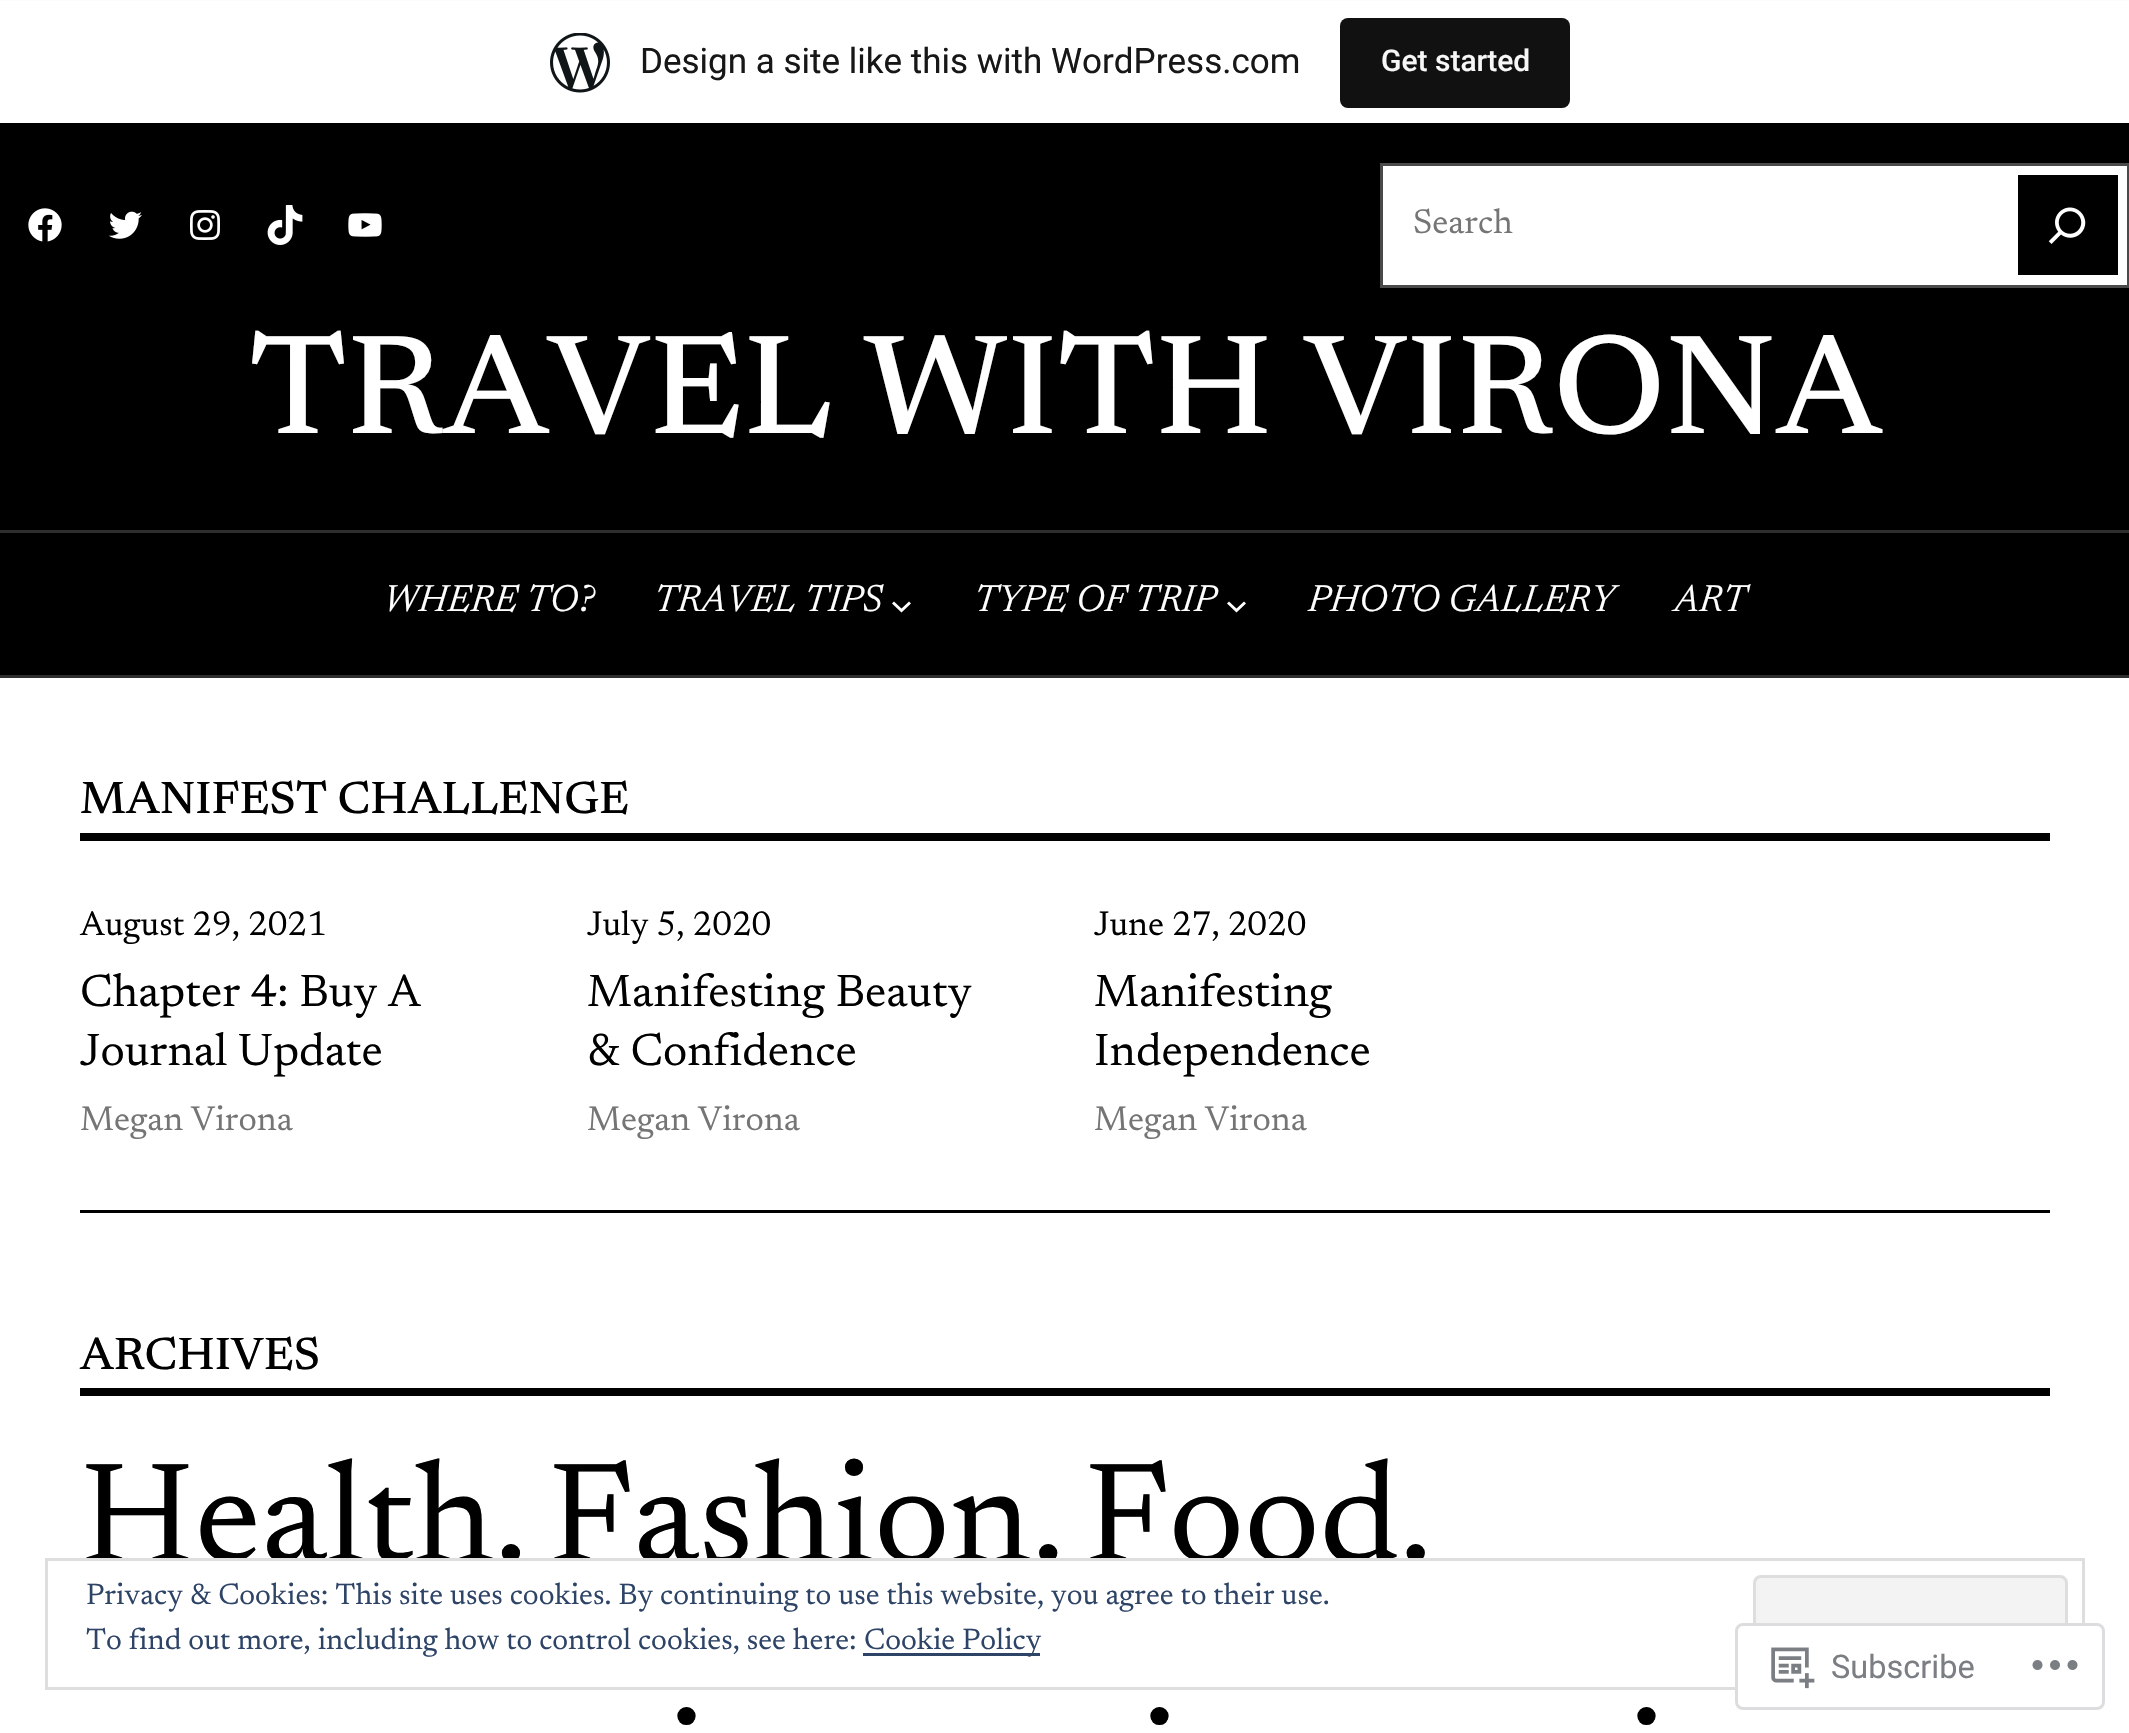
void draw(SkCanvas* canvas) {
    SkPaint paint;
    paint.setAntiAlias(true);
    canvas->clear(0xFFFFFFFF);
    paint.setColor(0xFF000000);
    canvas->drawRect(SkRect::MakeXYWH(0, 123, 2129, 552), paint);
    paint.setColor(0x0D000000);
    paint.setMaskFilter(SkMaskFilter::MakeBlur(kNormal_SkBlurStyle, 2.5f));
    canvas->drawRect(SkRect::MakeXYWH(0, 3, 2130, 122), paint);
    paint.setMaskFilter(nullptr);
    paint.setColor(0x14000000);
    canvas->drawPath(SkPathBuilder().moveTo(3, 122).lineTo(3, 130).lineTo(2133, 130).lineTo(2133, 8).lineTo(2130, 8).lineTo(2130, 122).close().detach(), paint);
    paint.setColor(0xFFFFFFFF);
    canvas->drawRect(SkRect::MakeXYWH(0, 1, 2129, 122), paint);
    canvas->drawImageRect(SkImages::DeferredFromEncodedData(SkData::MakeFromFileName("img1.png")), SkRect::MakeXYWH(550, 33, 60, 60), SkSamplingOptions());
    SkFont font1(fontMgr->matchFamilyStyle("Roboto", SkFontStyle::Normal()), 35);
    font1.setSubpixel(true);
    paint.setColor(0xFF171717);
    canvas->drawString("Design a site like this with WordPress.com", 640, 73, font1, paint);
    paint.setColor(0xFF111111);
    canvas->drawRoundRect(SkRect::MakeXYWH(1340, 18, 230, 90), 8, 8, paint);
    SkFont font2(fontMgr->matchFamilyStyle("Roboto", SkFontStyle(500, SkFontStyle::kNormal_Width, SkFontStyle::kUpright_Slant)), 30);
    font2.setSubpixel(true);
    paint.setColor(0xFFF6F7F7);
    canvas->drawString("Get started", 1381, 71, font2, paint);
    canvas->drawImageRect(SkImages::DeferredFromEncodedData(SkData::MakeFromFileName("img2.png")), SkRect::MakeXYWH(28, 208, 34, 34), SkSamplingOptions());
    canvas->drawImageRect(SkImages::DeferredFromEncodedData(SkData::MakeFromFileName("img3.png")), SkRect::MakeXYWH(108, 211, 34, 28), SkSamplingOptions());
    canvas->drawImageRect(SkImages::DeferredFromEncodedData(SkData::MakeFromFileName("img4.png")), SkRect::MakeXYWH(190, 210, 30, 30), SkSamplingOptions());
    canvas->drawImageRect(SkImages::DeferredFromEncodedData(SkData::MakeFromFileName("img5.png")), SkRect::MakeXYWH(267, 205, 36, 40), SkSamplingOptions());
    canvas->drawImageRect(SkImages::DeferredFromEncodedData(SkData::MakeFromFileName("img6.png")), SkRect::MakeXYWH(348, 213, 34, 24), SkSamplingOptions());
    paint.setColor(0xFFFFFFFF);
    canvas->drawRect(SkRect::MakeXYWH(1381.5f, 164.5f, 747, 122), paint);
    paint.setStyle(SkPaint::kStroke_Style);
    paint.setStrokeWidth(3);
    paint.setColor(0xFF4A4A4A);
    canvas->drawRect(SkRect::MakeXYWH(1381.5f, 164.5f, 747, 122), paint);
    SkFont font3(fontMgr->matchFamilyStyle("Newsreader", SkFontStyle::Normal()), 34.75f);
    font3.setSubpixel(true);
    paint.setStyle(SkPaint::kFill_Style);
    paint.setColor(0xFF757575);
    canvas->drawString("Search", 1413, 233, font3, paint);
    paint.setColor(0xFF000000);
    canvas->drawRect(SkRect::MakeXYWH(2018, 175, 100, 100), paint);
    canvas->drawImageRect(SkImages::DeferredFromEncodedData(SkData::MakeFromFileName("img7.png")), SkRect::MakeXYWH(2048, 207, 38, 37), SkSamplingOptions());
    SkFont font4(fontMgr->matchFamilyStyle("Newsreader", SkFontStyle(500, SkFontStyle::kNormal_Width, SkFontStyle::kUpright_Slant)), 143.3f);
    font4.setSubpixel(true);
    paint.setColor(0xFFFFFFFF);
    canvas->drawString("TRAVEL WITH VIRONA", 249, 433, font4, paint);
    paint.setColor(0xFF2E2E2E);
    canvas->drawRect(SkRect::MakeXYWH(0, 530, 2129, 3), paint);
    canvas->drawRect(SkRect::MakeXYWH(0, 675, 2129, 3), paint);
    SkFont font5(fontMgr->matchFamilyStyle("Newsreader", SkFontStyle::Italic()), 38.5f);
    font5.setSubpixel(true);
    paint.setColor(0xFFFFFFFF);
    canvas->drawString("WHERE TO?", 384, 611, font5, paint);
    canvas->drawString("TRAVEL TIPS", 654, 611, font5, paint);
    paint.setStyle(SkPaint::kStroke_Style);
    paint.setStrokeWidth(2.9f);
    canvas->drawPath(SkPathBuilder().moveTo(893, 602.5f).lineTo(901.5f, 610.5f).lineTo(910, 602.5f).detach(), paint);
    paint.setStyle(SkPaint::kFill_Style);
    canvas->drawString("TYPE OF TRIP", 974, 611, font5, paint);
    paint.setStyle(SkPaint::kStroke_Style);
    canvas->drawPath(SkPathBuilder().moveTo(1228, 602.5f).lineTo(1236.5f, 610.5f).lineTo(1245, 602.5f).detach(), paint);
    paint.setStyle(SkPaint::kFill_Style);
    canvas->drawString("PHOTO GALLERY", 1308, 611, font5, paint);
    canvas->drawString("ART", 1674, 611, font5, paint);
    paint.setColor(0xFF000000);
    canvas->drawRect(SkRect::MakeXYWH(80, 833, 1970, 8), paint);
    SkFont font6(fontMgr->matchFamilyStyle("Newsreader", SkFontStyle(500, SkFontStyle::kNormal_Width, SkFontStyle::kUpright_Slant)), 46);
    font6.setSubpixel(true);
    canvas->drawString("MANIFEST CHALLENGE", 80, 813, font6, paint);
    canvas->drawString("August 29, 2021", 80, 935, font3, paint);
    SkFont font7(fontMgr->matchFamilyStyle("Newsreader", SkFontStyle::Normal()), 46);
    font7.setSubpixel(true);
    canvas->drawString("Chapter 4: Buy A", 80, 1006, font7, paint);
    canvas->drawString("Journal Update", 80, 1065, font7, paint);
    paint.setColor(0xFF757575);
    canvas->drawString("Megan Virona", 80, 1130, font3, paint);
    paint.setColor(0xFF000000);
    canvas->drawString("July 5, 2020", 587, 935, font3, paint);
    canvas->drawString("Manifesting Beauty", 587, 1006, font7, paint);
    canvas->drawString("& Confidence", 587, 1065, font7, paint);
    paint.setColor(0xFF757575);
    canvas->drawString("Megan Virona", 587, 1130, font3, paint);
    paint.setColor(0xFF000000);
    canvas->drawString("June 27, 2020", 1094, 935, font3, paint);
    canvas->drawString("Manifesting", 1094, 1006, font7, paint);
    canvas->drawString("Independence", 1094, 1065, font7, paint);
    paint.setColor(0xFF757575);
    canvas->drawString("Megan Virona", 1094, 1130, font3, paint);
    paint.setColor(0xFF000000);
    canvas->drawRect(SkRect::MakeXYWH(80, 1210, 1970, 3), paint);
    canvas->drawRect(SkRect::MakeXYWH(80, 1388, 1970, 8), paint);
    canvas->drawString("ARCHIVES", 80, 1369, font6, paint);
    SkFont font8(fontMgr->matchFamilyStyle("Newsreader", SkFontStyle::Normal()), 143.3f);
    font8.setSubpixel(true);
    canvas->drawString("Health.", 80, 1561, font8, paint);
    canvas->drawString("Fashion.", 548, 1561, font8, paint);
    canvas->drawString("Food.", 1084, 1561, font8, paint);
    canvas->drawString(".", 670, 1724, font8, paint);
    canvas->drawString(".", 1143, 1724, font8, paint);
    canvas->drawString(".", 1630, 1724, font8, paint);
    paint.setColor(0xFFFFFFFF);
    canvas->drawRect(SkRect::MakeXYWH(221, 1561, 1200, 2), paint);
    paint.setStyle(SkPaint::kStroke_Style);
    paint.setStrokeWidth(3);
    paint.setColor(0xFFDEDEDE);
    canvas->drawRect(SkRect::MakeXYWH(46.5f, 1559.5f, 2037, 129), paint);
    SkFont font9(fontMgr->matchFamilyStyle("Newsreader", SkFontStyle::Normal()), 30);
    font9.setSubpixel(true);
    paint.setStyle(SkPaint::kFill_Style);
    paint.setColor(0xFF2E4467);
    canvas->drawString("Privacy & Cookies: This site uses cookies. By continuing to use this website, you agree to their use.", 86, 1604, font9, paint);
    paint.setColor(0xFFF3F3F3);
    canvas->drawRoundRect(SkRect::MakeXYWH(1754.5f, 1576.5f, 312, 95), 6.5f, 6.5f, paint);
    paint.setStyle(SkPaint::kStroke_Style);
    paint.setColor(0xFFDEDEDE);
    canvas->drawRoundRect(SkRect::MakeXYWH(1754.5f, 1576.5f, 312, 95), 6.5f, 6.5f, paint);
    paint.setStyle(SkPaint::kFill_Style);
    paint.setColor(0xFF2E4467);
    canvas->drawString("To find out more, including how to control cookies, see here:", 86, 1649, font9, paint);
    canvas->drawRect(SkRect::MakeXYWH(863, 1653, 177, 3), paint);
    canvas->drawString("Cookie Policy", 864, 1649, font9, paint);
    paint.setColor(0xFAFFFFFF);
    canvas->drawRoundRect(SkRect::MakeXYWH(1735, 1623, 370, 87), 8, 8, paint);
    paint.setStyle(SkPaint::kStroke_Style);
    paint.setColor(0xFADCDCDE);
    canvas->drawRoundRect(SkRect::MakeXYWH(1736.5f, 1624.5f, 367, 84), 6.5f, 6.5f, paint);
    canvas->drawImageRect(SkImages::DeferredFromEncodedData(SkData::MakeFromFileName("img8.png")), SkRect::MakeXYWH(1771, 1647, 44, 42), SkSamplingOptions());
    SkFont font10(fontMgr->matchFamilyStyle("Roboto", SkFontStyle::Normal()), 32.5f);
    font10.setSubpixel(true);
    paint.setStyle(SkPaint::kFill_Style);
    paint.setColor(0xFF7B7F84);
    canvas->drawString("Subscribe", 1831, 1678, font10, paint);
    canvas->drawImageRect(SkImages::DeferredFromEncodedData(SkData::MakeFromFileName("img9.png")), SkRect::MakeXYWH(2032, 1660, 46, 10), SkSamplingOptions());
}
